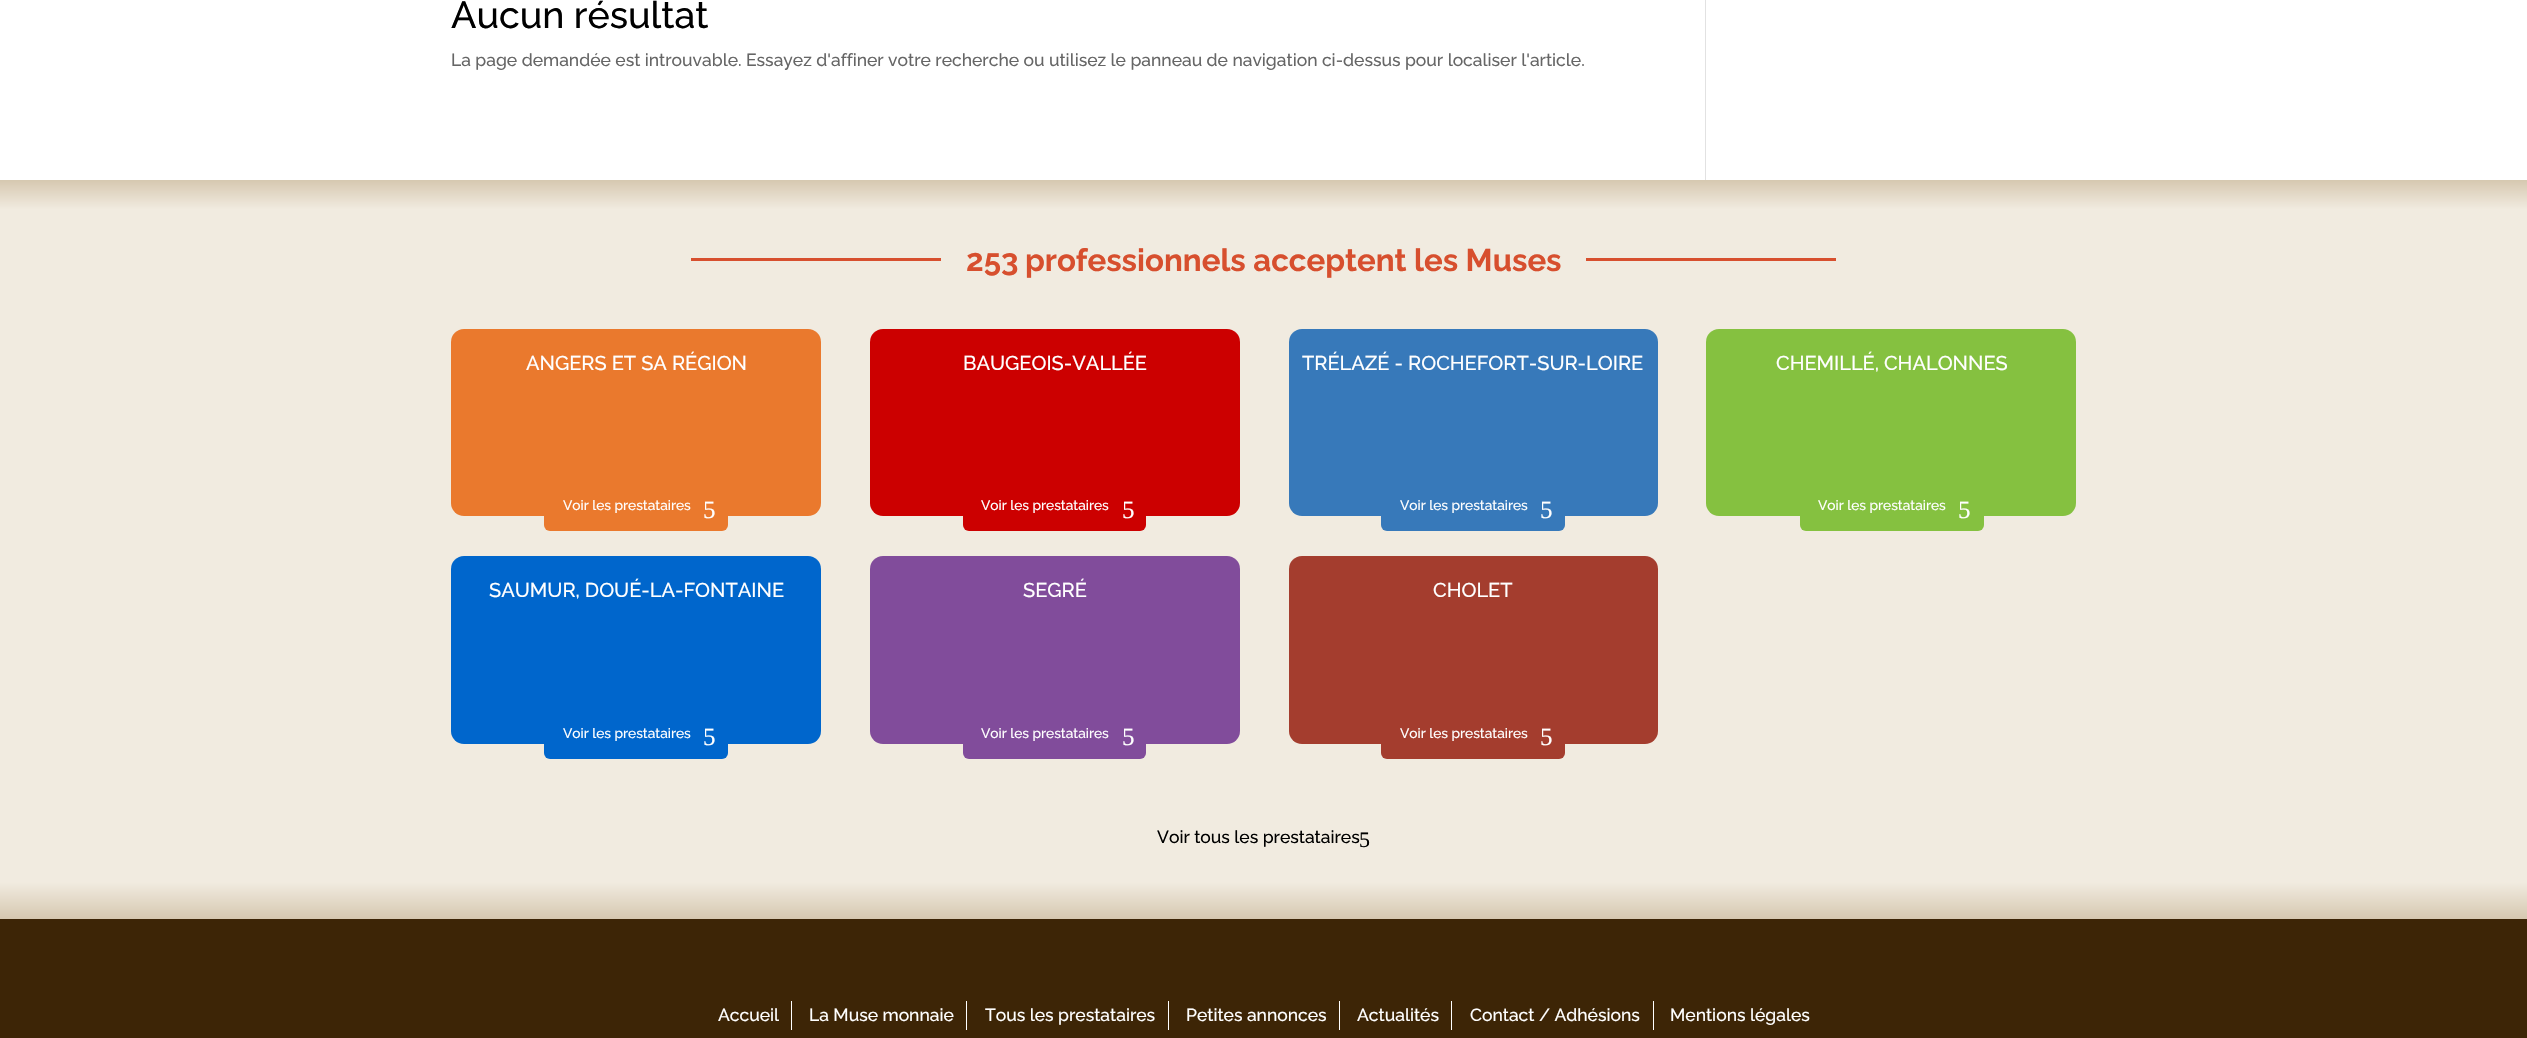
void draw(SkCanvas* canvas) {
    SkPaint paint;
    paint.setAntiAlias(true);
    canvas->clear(0xFFFFFFFF);
    SkFont font1(fontMgr->matchFamilyStyle("Raleway", SkFontStyle(500, SkFontStyle::kNormal_Width, SkFontStyle::kUpright_Slant)), 37.5f);
    font1.setSubpixel(true);
    paint.setColor(0xFF000000);
    canvas->drawString("Aucun résultat", 451, 28, font1, paint);
    SkFont font2(fontMgr->matchFamilyStyle("Raleway", SkFontStyle(500, SkFontStyle::kNormal_Width, SkFontStyle::kUpright_Slant)), 17.5f);
    font2.setSubpixel(true);
    paint.setColor(0xFF666666);
    canvas->drawString("La page demandée est introuvable. Essayez d'affiner votre recherche ou utilisez le panneau de navigation ci-dessus pour localiser l'article.", 451, 66, font2, paint);
    paint.setColor(0xFFE2E2E2);
    canvas->drawRect(SkRect::MakeXYWH(1705, 0, 1, 180), paint);
    {
        const SkColor colors[] = {0xFFD6C8B0, 0xFFF1EBE0, 0xFFF1EBE0, 0xFFD6C8B0};
        const float stops[] = {0, 0.04f, 0.95f, 1};
        const SkPoint ends[] = {{1264, 180}, {1264, 919}};
        paint.setShader(SkGradientShader::MakeLinear(ends, colors, stops, 4, SkTileMode::kClamp));
        paint.setAlpha(255);
    }
    canvas->drawRect(SkRect::MakeXYWH(0, 180, 2527, 739), paint);
    paint.setShader(nullptr);
    paint.setColor(0xFFD74F2E);
    canvas->drawRect(SkRect::MakeXYWH(691, 258, 250, 3), paint);
    SkFont font3(fontMgr->matchFamilyStyle("Raleway", SkFontStyle::Bold()), 31.25f);
    font3.setSubpixel(true);
    canvas->drawString("253", 966, 271, font3, paint);
    canvas->drawString("professionnels acceptent les Muses", 1025, 271, font3, paint);
    canvas->drawRect(SkRect::MakeXYWH(1586, 258, 250, 3), paint);
    paint.setColor(0xFFEA792D);
    canvas->drawRoundRect(SkRect::MakeXYWH(451, 329, 370, 187), 13, 13, paint);
    SkFont font4(fontMgr->matchFamilyStyle("Raleway", SkFontStyle(500, SkFontStyle::kNormal_Width, SkFontStyle::kUpright_Slant)), 20);
    font4.setSubpixel(true);
    paint.setColor(0xFFFFFFFF);
    canvas->drawString("ANGERS ET SA RÉGION", 526, 370, font4, paint);
    paint.setColor(0xFFEA792D);
    canvas->drawRoundRect(SkRect::MakeXYWH(544, 483, 184, 48), 6, 6, paint);
    SkFont font5(fontMgr->matchFamilyStyle("Raleway", SkFontStyle(500, SkFontStyle::kNormal_Width, SkFontStyle::kUpright_Slant)), 13.75f);
    font5.setSubpixel(true);
    paint.setColor(0xFFFFFFFF);
    canvas->drawString("Voir les prestataires", 563, 510, font5, paint);
    SkFont font6(fontMgr->matchFamilyStyle("Liberation Serif", SkFontStyle::Normal()), 25);
    font6.setSubpixel(true);
    canvas->drawString("5", 703, 518, font6, paint);
    paint.setColor(0xFFCC0000);
    canvas->drawRoundRect(SkRect::MakeXYWH(870, 329, 370, 187), 13, 13, paint);
    paint.setColor(0xFFFFFFFF);
    canvas->drawString("BAUGEOIS-VALLÉE", 963, 370, font4, paint);
    paint.setColor(0xFFCC0000);
    canvas->drawRoundRect(SkRect::MakeXYWH(963, 483, 183, 48), 6, 6, paint);
    paint.setColor(0xFFFFFFFF);
    canvas->drawString("Voir les prestataires", 981, 510, font5, paint);
    canvas->drawString("5", 1122, 518, font6, paint);
    paint.setColor(0xFF3779BA);
    canvas->drawRoundRect(SkRect::MakeXYWH(1289, 329, 369, 187), 13, 13, paint);
    paint.setColor(0xFFFFFFFF);
    canvas->drawString("TRÉLAZÉ - ROCHEFORT-SUR-LOIRE", 1302, 370, font4, paint);
    paint.setColor(0xFF3779BA);
    canvas->drawRoundRect(SkRect::MakeXYWH(1381, 483, 184, 48), 6, 6, paint);
    paint.setColor(0xFFFFFFFF);
    canvas->drawString("Voir les prestataires", 1400, 510, font5, paint);
    canvas->drawString("5", 1540, 518, font6, paint);
    paint.setColor(0xFF85C140);
    canvas->drawRoundRect(SkRect::MakeXYWH(1706, 329, 370, 187), 13, 13, paint);
    paint.setColor(0xFFFFFFFF);
    canvas->drawString("CHEMILLÉ, CHALONNES", 1776, 370, font4, paint);
    paint.setColor(0xFF85C140);
    canvas->drawRoundRect(SkRect::MakeXYWH(1800, 483, 184, 48), 6, 6, paint);
    paint.setColor(0xFFFFFFFF);
    canvas->drawString("Voir les prestataires", 1818, 510, font5, paint);
    canvas->drawString("5", 1958, 518, font6, paint);
    paint.setColor(0xFF0066CC);
    canvas->drawRoundRect(SkRect::MakeXYWH(451, 556, 370, 188), 13, 13, paint);
    paint.setColor(0xFFFFFFFF);
    canvas->drawString("SAUMUR, DOUÉ-LA-FONTAINE", 489, 597, font4, paint);
    paint.setColor(0xFF0066CC);
    canvas->drawRoundRect(SkRect::MakeXYWH(544, 710, 184, 49), 6, 6, paint);
    paint.setColor(0xFFFFFFFF);
    canvas->drawString("Voir les prestataires", 563, 738, font5, paint);
    canvas->drawString("5", 703, 745, font6, paint);
    paint.setColor(0xFF814C9B);
    canvas->drawRoundRect(SkRect::MakeXYWH(870, 556, 370, 188), 13, 13, paint);
    paint.setColor(0xFFFFFFFF);
    canvas->drawString("SEGRÉ", 1023, 597, font4, paint);
    paint.setColor(0xFF814C9B);
    canvas->drawRoundRect(SkRect::MakeXYWH(963, 710, 183, 49), 6, 6, paint);
    paint.setColor(0xFFFFFFFF);
    canvas->drawString("Voir les prestataires", 981, 738, font5, paint);
    canvas->drawString("5", 1122, 745, font6, paint);
    paint.setColor(0xFFA43D2E);
    canvas->drawRoundRect(SkRect::MakeXYWH(1289, 556, 369, 188), 13, 13, paint);
    paint.setColor(0xFFFFFFFF);
    canvas->drawString("CHOLET", 1433, 597, font4, paint);
    paint.setColor(0xFFA43D2E);
    canvas->drawRoundRect(SkRect::MakeXYWH(1381, 710, 184, 49), 6, 6, paint);
    paint.setColor(0xFFFFFFFF);
    canvas->drawString("Voir les prestataires", 1400, 738, font5, paint);
    canvas->drawString("5", 1540, 745, font6, paint);
    paint.setColor(0xFF000000);
    canvas->drawString("Voir tous les prestataires", 1157, 843, font2, paint);
    SkFont font7(fontMgr->matchFamilyStyle("Liberation Serif", SkFontStyle::Normal()), 22);
    font7.setSubpixel(true);
    canvas->drawString("5", 1359, 847, font7, paint);
    paint.setColor(0xFF3D2506);
    canvas->drawRect(SkRect::MakeXYWH(0, 919, 2527, 119), paint);
    paint.setColor(0xFFFFFFFF);
    canvas->drawRect(SkRect::MakeXYWH(791, 1001, 1, 29), paint);
    canvas->drawString("Accueil", 718, 1021, font2, paint);
    canvas->drawRect(SkRect::MakeXYWH(966, 1001, 1, 29), paint);
    canvas->drawString("La Muse monnaie", 809, 1021, font2, paint);
    canvas->drawRect(SkRect::MakeXYWH(1168, 1001, 1, 29), paint);
    canvas->drawString("Tous les prestataires", 985, 1021, font2, paint);
    canvas->drawRect(SkRect::MakeXYWH(1339, 1001, 1, 29), paint);
    canvas->drawString("Petites annonces", 1186, 1021, font2, paint);
    canvas->drawRect(SkRect::MakeXYWH(1451, 1001, 1, 29), paint);
    canvas->drawString("Actualités", 1357, 1021, font2, paint);
    canvas->drawRect(SkRect::MakeXYWH(1653, 1001, 1, 29), paint);
    canvas->drawString("Contact / Adhésions", 1470, 1021, font2, paint);
    canvas->drawString("Mentions légales", 1670, 1021, font2, paint);
}
